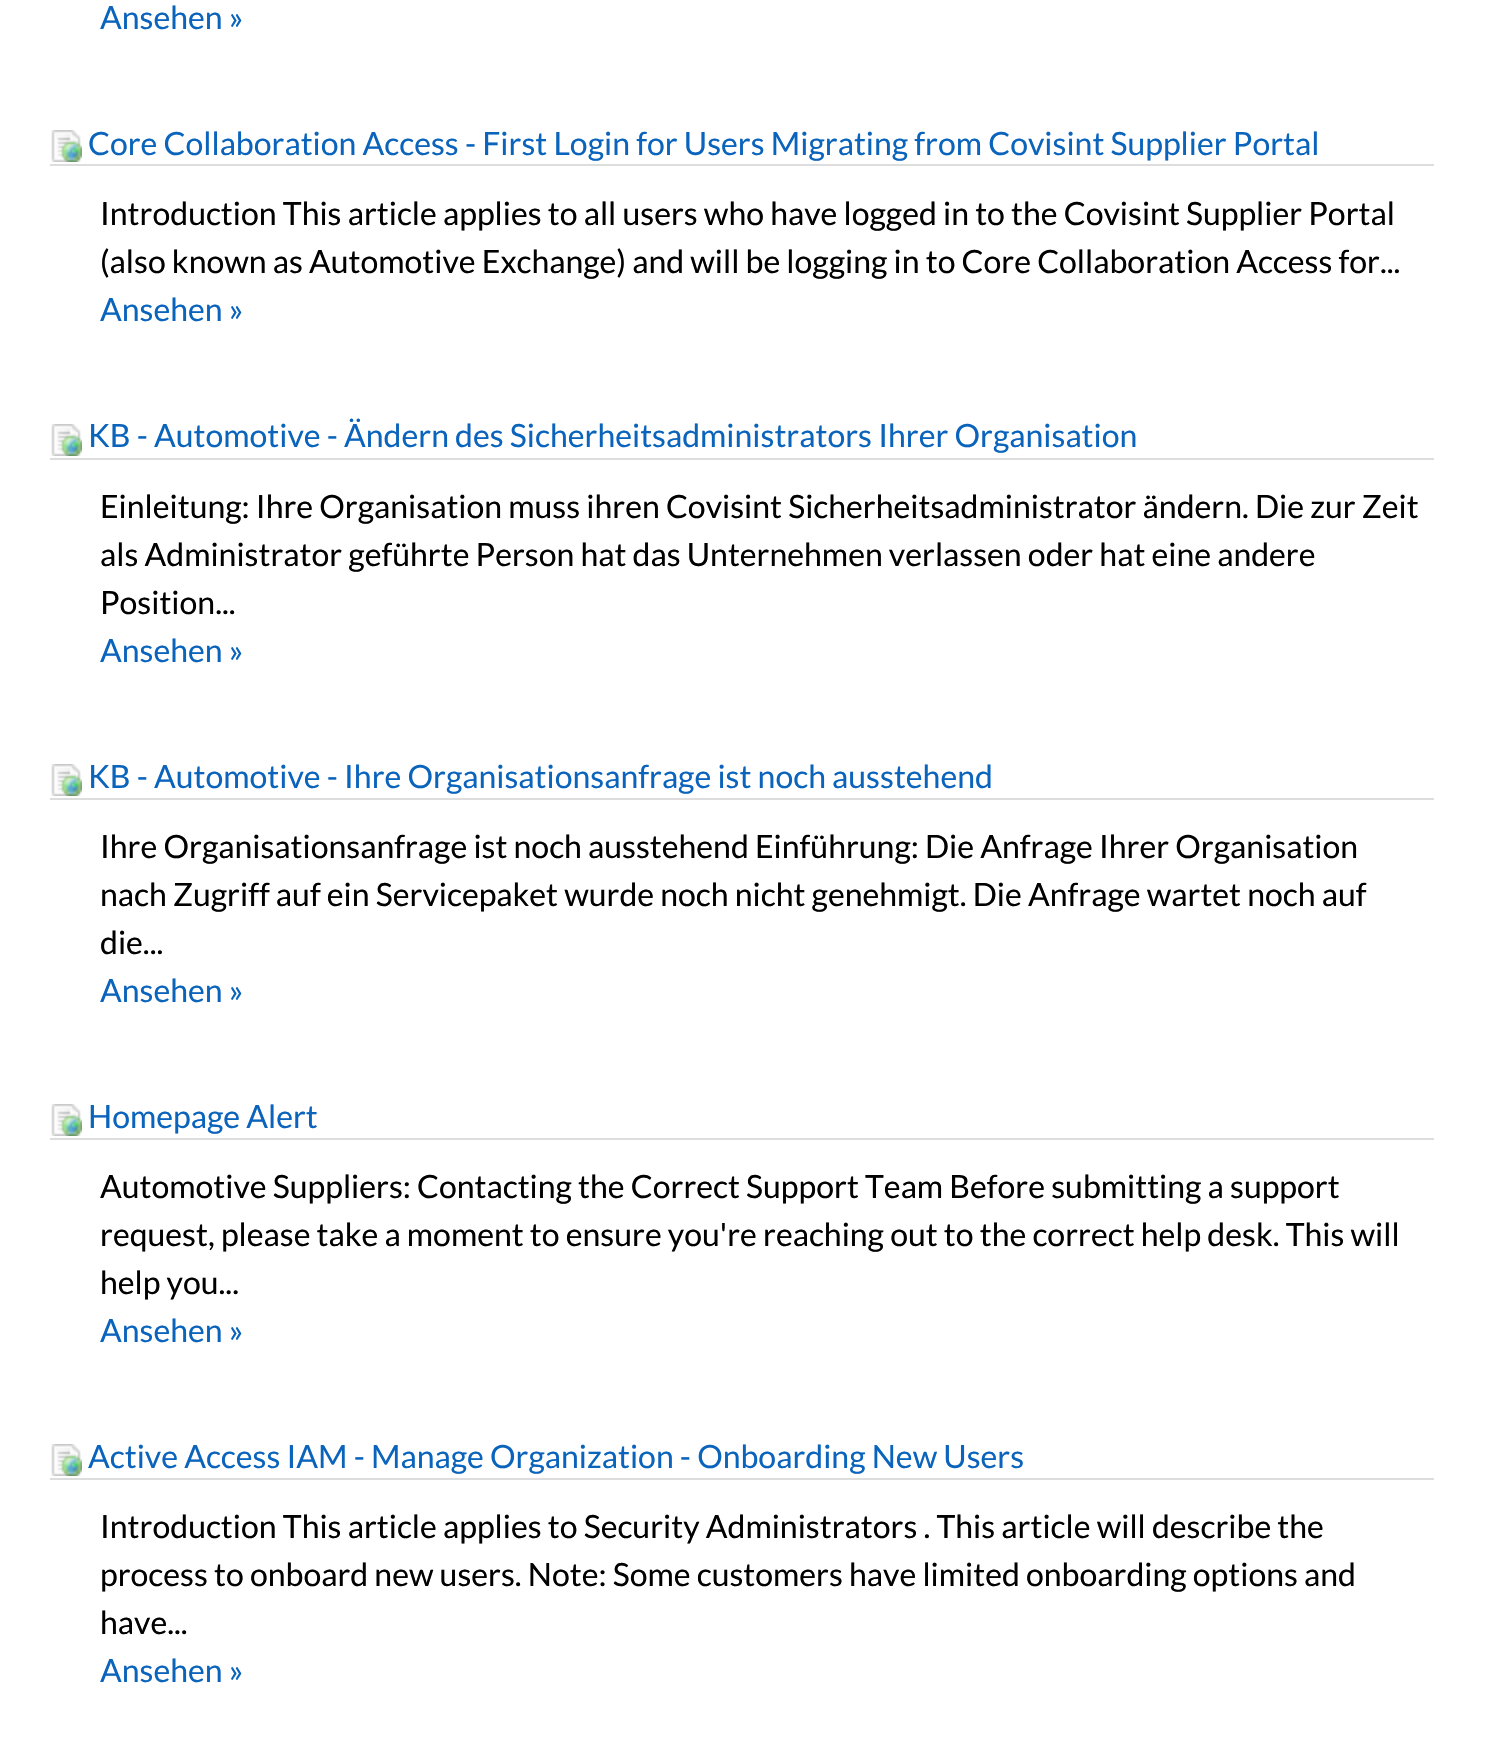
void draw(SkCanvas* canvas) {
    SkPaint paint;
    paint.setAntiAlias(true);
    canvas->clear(0xFFFFFFFF);
    SkFont font1(fontMgr->matchFamilyStyle("Lato", SkFontStyle::Normal()), 32);
    font1.setSubpixel(true);
    paint.setColor(0xFF0B64BC);
    canvas->drawString("Ansehen »", 100, 29, font1, paint);
    paint.setColor(0xFFDDDDDD);
    canvas->drawRect(SkRect::MakeXYWH(50, 164, 1384, 2), paint);
    canvas->drawImageRect(SkImages::DeferredFromEncodedData(SkData::MakeFromFileName("img1.png")), SkRect::MakeXYWH(51, 130, 31, 32), SkSamplingOptions());
    paint.setColor(0xFF0B64BC);
    canvas->drawString("Core Collaboration Access - First Login for Users Migrating from Covisint Supplier Portal", 88, 155, font1, paint);
    paint.setColor(0xFF000000);
    canvas->drawString("Introduction This article applies to all users who have logged in to the Covisint Supplier Portal", 100, 225, font1, paint);
    canvas->drawString("(also known as Automotive Exchange) and will be logging in to Core Collaboration Access for...", 100, 273, font1, paint);
    paint.setColor(0xFF0B64BC);
    canvas->drawString("Ansehen »", 100, 321, font1, paint);
    paint.setColor(0xFFDDDDDD);
    canvas->drawRect(SkRect::MakeXYWH(50, 458, 1384, 2), paint);
    canvas->drawImageRect(SkImages::DeferredFromEncodedData(SkData::MakeFromFileName("img1.png")), SkRect::MakeXYWH(51, 424, 31, 32), SkSamplingOptions());
    paint.setColor(0xFF0B64BC);
    canvas->drawString("KB - Automotive - Ändern des Sicherheitsadministrators Ihrer Organisation", 88, 447, font1, paint);
    paint.setColor(0xFF000000);
    canvas->drawString("Einleitung: Ihre Organisation muss ihren Covisint Sicherheitsadministrator ändern. Die zur Zeit", 100, 518, font1, paint);
    canvas->drawString("als Administrator geführte Person hat das Unternehmen verlassen oder hat eine andere", 100, 566, font1, paint);
    canvas->drawString("Position...", 100, 614, font1, paint);
    paint.setColor(0xFF0B64BC);
    canvas->drawString("Ansehen »", 100, 662, font1, paint);
    paint.setColor(0xFFDDDDDD);
    canvas->drawRect(SkRect::MakeXYWH(50, 798, 1384, 2), paint);
    canvas->drawImageRect(SkImages::DeferredFromEncodedData(SkData::MakeFromFileName("img1.png")), SkRect::MakeXYWH(51, 764, 31, 32), SkSamplingOptions());
    paint.setColor(0xFF0B64BC);
    canvas->drawString("KB - Automotive - Ihre Organisationsanfrage ist noch ausstehend", 88, 788, font1, paint);
    paint.setColor(0xFF000000);
    canvas->drawString("Ihre Organisationsanfrage ist noch ausstehend Einführung: Die Anfrage Ihrer Organisation", 100, 858, font1, paint);
    canvas->drawString("nach Zugriff auf ein Servicepaket wurde noch nicht genehmigt. Die Anfrage wartet noch auf", 100, 906, font1, paint);
    canvas->drawString("die...", 100, 954, font1, paint);
    paint.setColor(0xFF0B64BC);
    canvas->drawString("Ansehen »", 100, 1002, font1, paint);
    paint.setColor(0xFFDDDDDD);
    canvas->drawRect(SkRect::MakeXYWH(50, 1138, 1384, 2), paint);
    canvas->drawImageRect(SkImages::DeferredFromEncodedData(SkData::MakeFromFileName("img1.png")), SkRect::MakeXYWH(51, 1104, 31, 32), SkSamplingOptions());
    paint.setColor(0xFF0B64BC);
    canvas->drawString("Homepage Alert", 88, 1128, font1, paint);
    paint.setColor(0xFF000000);
    canvas->drawString("Automotive Suppliers: Contacting the Correct Support Team Before submitting a support", 100, 1198, font1, paint);
    canvas->drawString("request, please take a moment to ensure you're reaching out to the correct help desk. This will", 100, 1246, font1, paint);
    canvas->drawString("help you...", 100, 1294, font1, paint);
    paint.setColor(0xFF0B64BC);
    canvas->drawString("Ansehen »", 100, 1342, font1, paint);
    paint.setColor(0xFFDDDDDD);
    canvas->drawRect(SkRect::MakeXYWH(50, 1478, 1384, 2), paint);
    canvas->drawImageRect(SkImages::DeferredFromEncodedData(SkData::MakeFromFileName("img1.png")), SkRect::MakeXYWH(51, 1444, 31, 32), SkSamplingOptions());
    paint.setColor(0xFF0B64BC);
    canvas->drawString("Active Access IAM - Manage Organization - Onboarding New Users", 88, 1468, font1, paint);
    paint.setColor(0xFF000000);
    canvas->drawString("Introduction This article applies to Security Administrators . This article will describe the", 100, 1538, font1, paint);
    canvas->drawString("process to onboard new users. Note: Some customers have limited onboarding options and", 100, 1586, font1, paint);
    canvas->drawString("have...", 100, 1634, font1, paint);
    paint.setColor(0xFF0B64BC);
    canvas->drawString("Ansehen »", 100, 1682, font1, paint);
}
